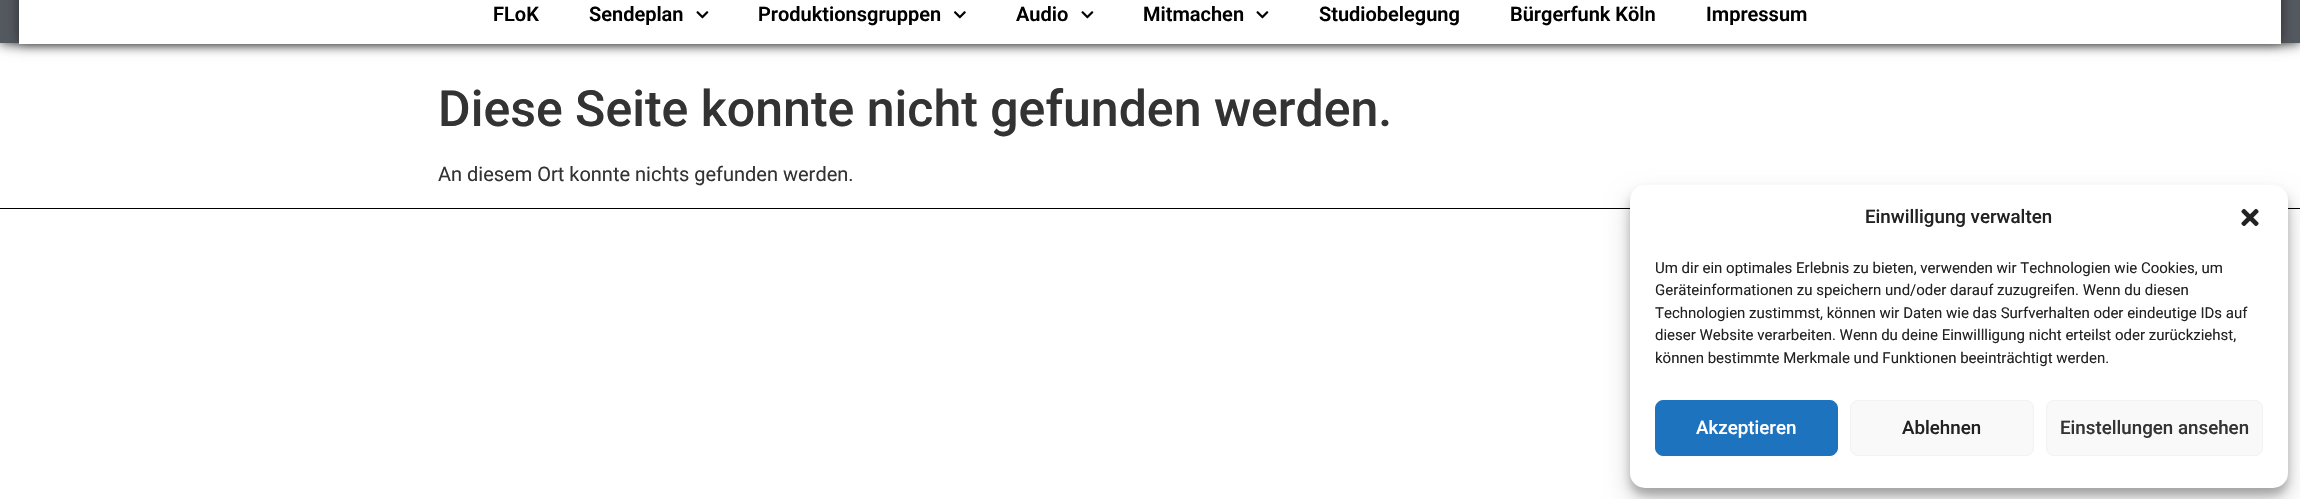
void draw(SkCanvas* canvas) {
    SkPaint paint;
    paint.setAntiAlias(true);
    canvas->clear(0xFFFFFFFF);
    paint.setColor(0xDB000000);
    paint.setMaskFilter(SkMaskFilter::MakeBlur(kNormal_SkBlurStyle, 6));
    canvas->drawRect(SkRect::MakeXYWH(0, -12, 2300, 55), paint);
    paint.setMaskFilter(nullptr);
    paint.setColor(0xFF54595F);
    canvas->drawRect(SkRect::MakeXYWH(2281, 0, 19, 43), paint);
    canvas->drawRect(SkRect::MakeXYWH(0, 0, 19, 43), paint);
    paint.setColor(0x80000000);
    paint.setMaskFilter(SkMaskFilter::MakeBlur(kNormal_SkBlurStyle, 6));
    canvas->drawRect(SkRect::MakeXYWH(19, -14, 2262, 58), paint);
    paint.setMaskFilter(nullptr);
    paint.setColor(0xFFFFFFFF);
    canvas->drawRect(SkRect::MakeXYWH(19, 0, 2262, 44), paint);
    SkFont font1(fontMgr->matchFamilyStyle("Roboto", SkFontStyle(600, SkFontStyle::kNormal_Width, SkFontStyle::kUpright_Slant)), 20);
    font1.setSubpixel(true);
    paint.setColor(0xFF000000);
    canvas->drawString("FLoK", 493, 21, font1, paint);
    canvas->drawString("Sendeplan", 589, 21, font1, paint);
    canvas->drawImageRect(SkImages::DeferredFromEncodedData(SkData::MakeFromFileName("img1.png")), SkRect::MakeXYWH(696, 11, 13, 8), SkSamplingOptions());
    canvas->drawString("Produktionsgruppen", 758, 21, font1, paint);
    canvas->drawImageRect(SkImages::DeferredFromEncodedData(SkData::MakeFromFileName("img2.png")), SkRect::MakeXYWH(954, 11, 12, 8), SkSamplingOptions());
    canvas->drawString("Audio", 1016, 21, font1, paint);
    canvas->drawImageRect(SkImages::DeferredFromEncodedData(SkData::MakeFromFileName("img1.png")), SkRect::MakeXYWH(1081, 11, 13, 8), SkSamplingOptions());
    canvas->drawString("Mitmachen", 1143, 21, font1, paint);
    canvas->drawImageRect(SkImages::DeferredFromEncodedData(SkData::MakeFromFileName("img1.png")), SkRect::MakeXYWH(1256, 11, 13, 8), SkSamplingOptions());
    canvas->drawString("Studiobelegung", 1319, 21, font1, paint);
    canvas->drawString("Bürgerfunk Köln", 1510, 21, font1, paint);
    canvas->drawString("Impressum", 1706, 21, font1, paint);
    SkFont font2(fontMgr->matchFamilyStyle("Roboto", SkFontStyle(500, SkFontStyle::kNormal_Width, SkFontStyle::kUpright_Slant)), 50);
    font2.setSubpixel(true);
    paint.setColor(0xFF333333);
    canvas->drawString("Diese Seite konnte nicht gefunden werden.", 438, 126, font2, paint);
    SkFont font3(fontMgr->matchFamilyStyle("Roboto", SkFontStyle::Normal()), 20);
    font3.setSubpixel(true);
    canvas->drawString("An diesem Ort konnte nichts gefunden werden.", 438, 181, font3, paint);
    paint.setColor(0xFF000000);
    canvas->drawRect(SkRect::MakeXYWH(0, 208, 2300, 1), paint);
    paint.setColor(0x3B000000);
    paint.setMaskFilter(SkMaskFilter::MakeBlur(kNormal_SkBlurStyle, 4));
    canvas->drawRoundRect(SkRect::MakeXYWH(1630, 193, 658, 302), 15, 15, paint);
    paint.setMaskFilter(nullptr);
    paint.setColor(0x30000000);
    paint.setMaskFilter(SkMaskFilter::MakeBlur(kNormal_SkBlurStyle, 12.5f));
    canvas->drawRoundRect(SkRect::MakeXYWH(1630, 198, 658, 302), 15, 15, paint);
    paint.setMaskFilter(nullptr);
    paint.setColor(0xFFFFFFFF);
    canvas->drawRoundRect(SkRect::MakeXYWH(1630, 185, 658, 303), 15, 15, paint);
    SkFont font4(fontMgr->matchFamilyStyle("Roboto", SkFontStyle(500, SkFontStyle::kNormal_Width, SkFontStyle::kUpright_Slant)), 18.75f);
    font4.setSubpixel(true);
    paint.setColor(0xFF222222);
    canvas->drawString("Einwilligung verwalten", 1865, 223, font4, paint);
    canvas->drawImageRect(SkImages::DeferredFromEncodedData(SkData::MakeFromFileName("img3.png")), SkRect::MakeXYWH(2241, 208, 18, 18), SkSamplingOptions());
    SkFont font5(fontMgr->matchFamilyStyle("Roboto", SkFontStyle::Normal()), 15);
    font5.setSubpixel(true);
    canvas->drawString("Um dir ein optimales Erlebnis zu bieten, verwenden wir Technologien wie Cookies, um", 1655, 273, font5, paint);
    canvas->drawString("Geräteinformationen zu speichern und/oder darauf zuzugreifen. Wenn du diesen", 1655, 295, font5, paint);
    canvas->drawString("Technologien zustimmst, können wir Daten wie das Surfverhalten oder eindeutige IDs auf", 1655, 318, font5, paint);
    canvas->drawString("dieser Website verarbeiten. Wenn du deine Einwillligung nicht erteilst oder zurückziehst,", 1655, 340, font5, paint);
    canvas->drawString("können bestimmte Merkmale und Funktionen beeinträchtigt werden.", 1655, 363, font5, paint);
    paint.setColor(0xFF1E73BE);
    canvas->drawRoundRect(SkRect::MakeXYWH(1655.5f, 400.5f, 182, 55), 7.5f, 7.5f, paint);
    paint.setStyle(SkPaint::kStroke_Style);
    paint.setStrokeWidth(1);
    canvas->drawRoundRect(SkRect::MakeXYWH(1655.5f, 400.5f, 182, 55), 7.5f, 7.5f, paint);
    paint.setStyle(SkPaint::kFill_Style);
    paint.setColor(0xFFFFFFFF);
    canvas->drawString("Akzeptieren", 1696, 434, font4, paint);
    paint.setColor(0xFFF9F9F9);
    canvas->drawRoundRect(SkRect::MakeXYWH(1850.5f, 400.5f, 183, 55), 7.5f, 7.5f, paint);
    paint.setStyle(SkPaint::kStroke_Style);
    paint.setColor(0xFFF2F2F2);
    canvas->drawRoundRect(SkRect::MakeXYWH(1850.5f, 400.5f, 183, 55), 7.5f, 7.5f, paint);
    paint.setStyle(SkPaint::kFill_Style);
    paint.setColor(0xFF222222);
    canvas->drawString("Ablehnen", 1902, 434, font4, paint);
    paint.setColor(0xFFF9F9F9);
    canvas->drawRoundRect(SkRect::MakeXYWH(2046.5f, 400.5f, 216, 55), 7.5f, 7.5f, paint);
    paint.setStyle(SkPaint::kStroke_Style);
    paint.setColor(0xFFF2F2F2);
    canvas->drawRoundRect(SkRect::MakeXYWH(2046.5f, 400.5f, 216, 55), 7.5f, 7.5f, paint);
    paint.setStyle(SkPaint::kFill_Style);
    paint.setColor(0xFF333333);
    canvas->drawString("Einstellungen ansehen", 2060, 434, font4, paint);
}
